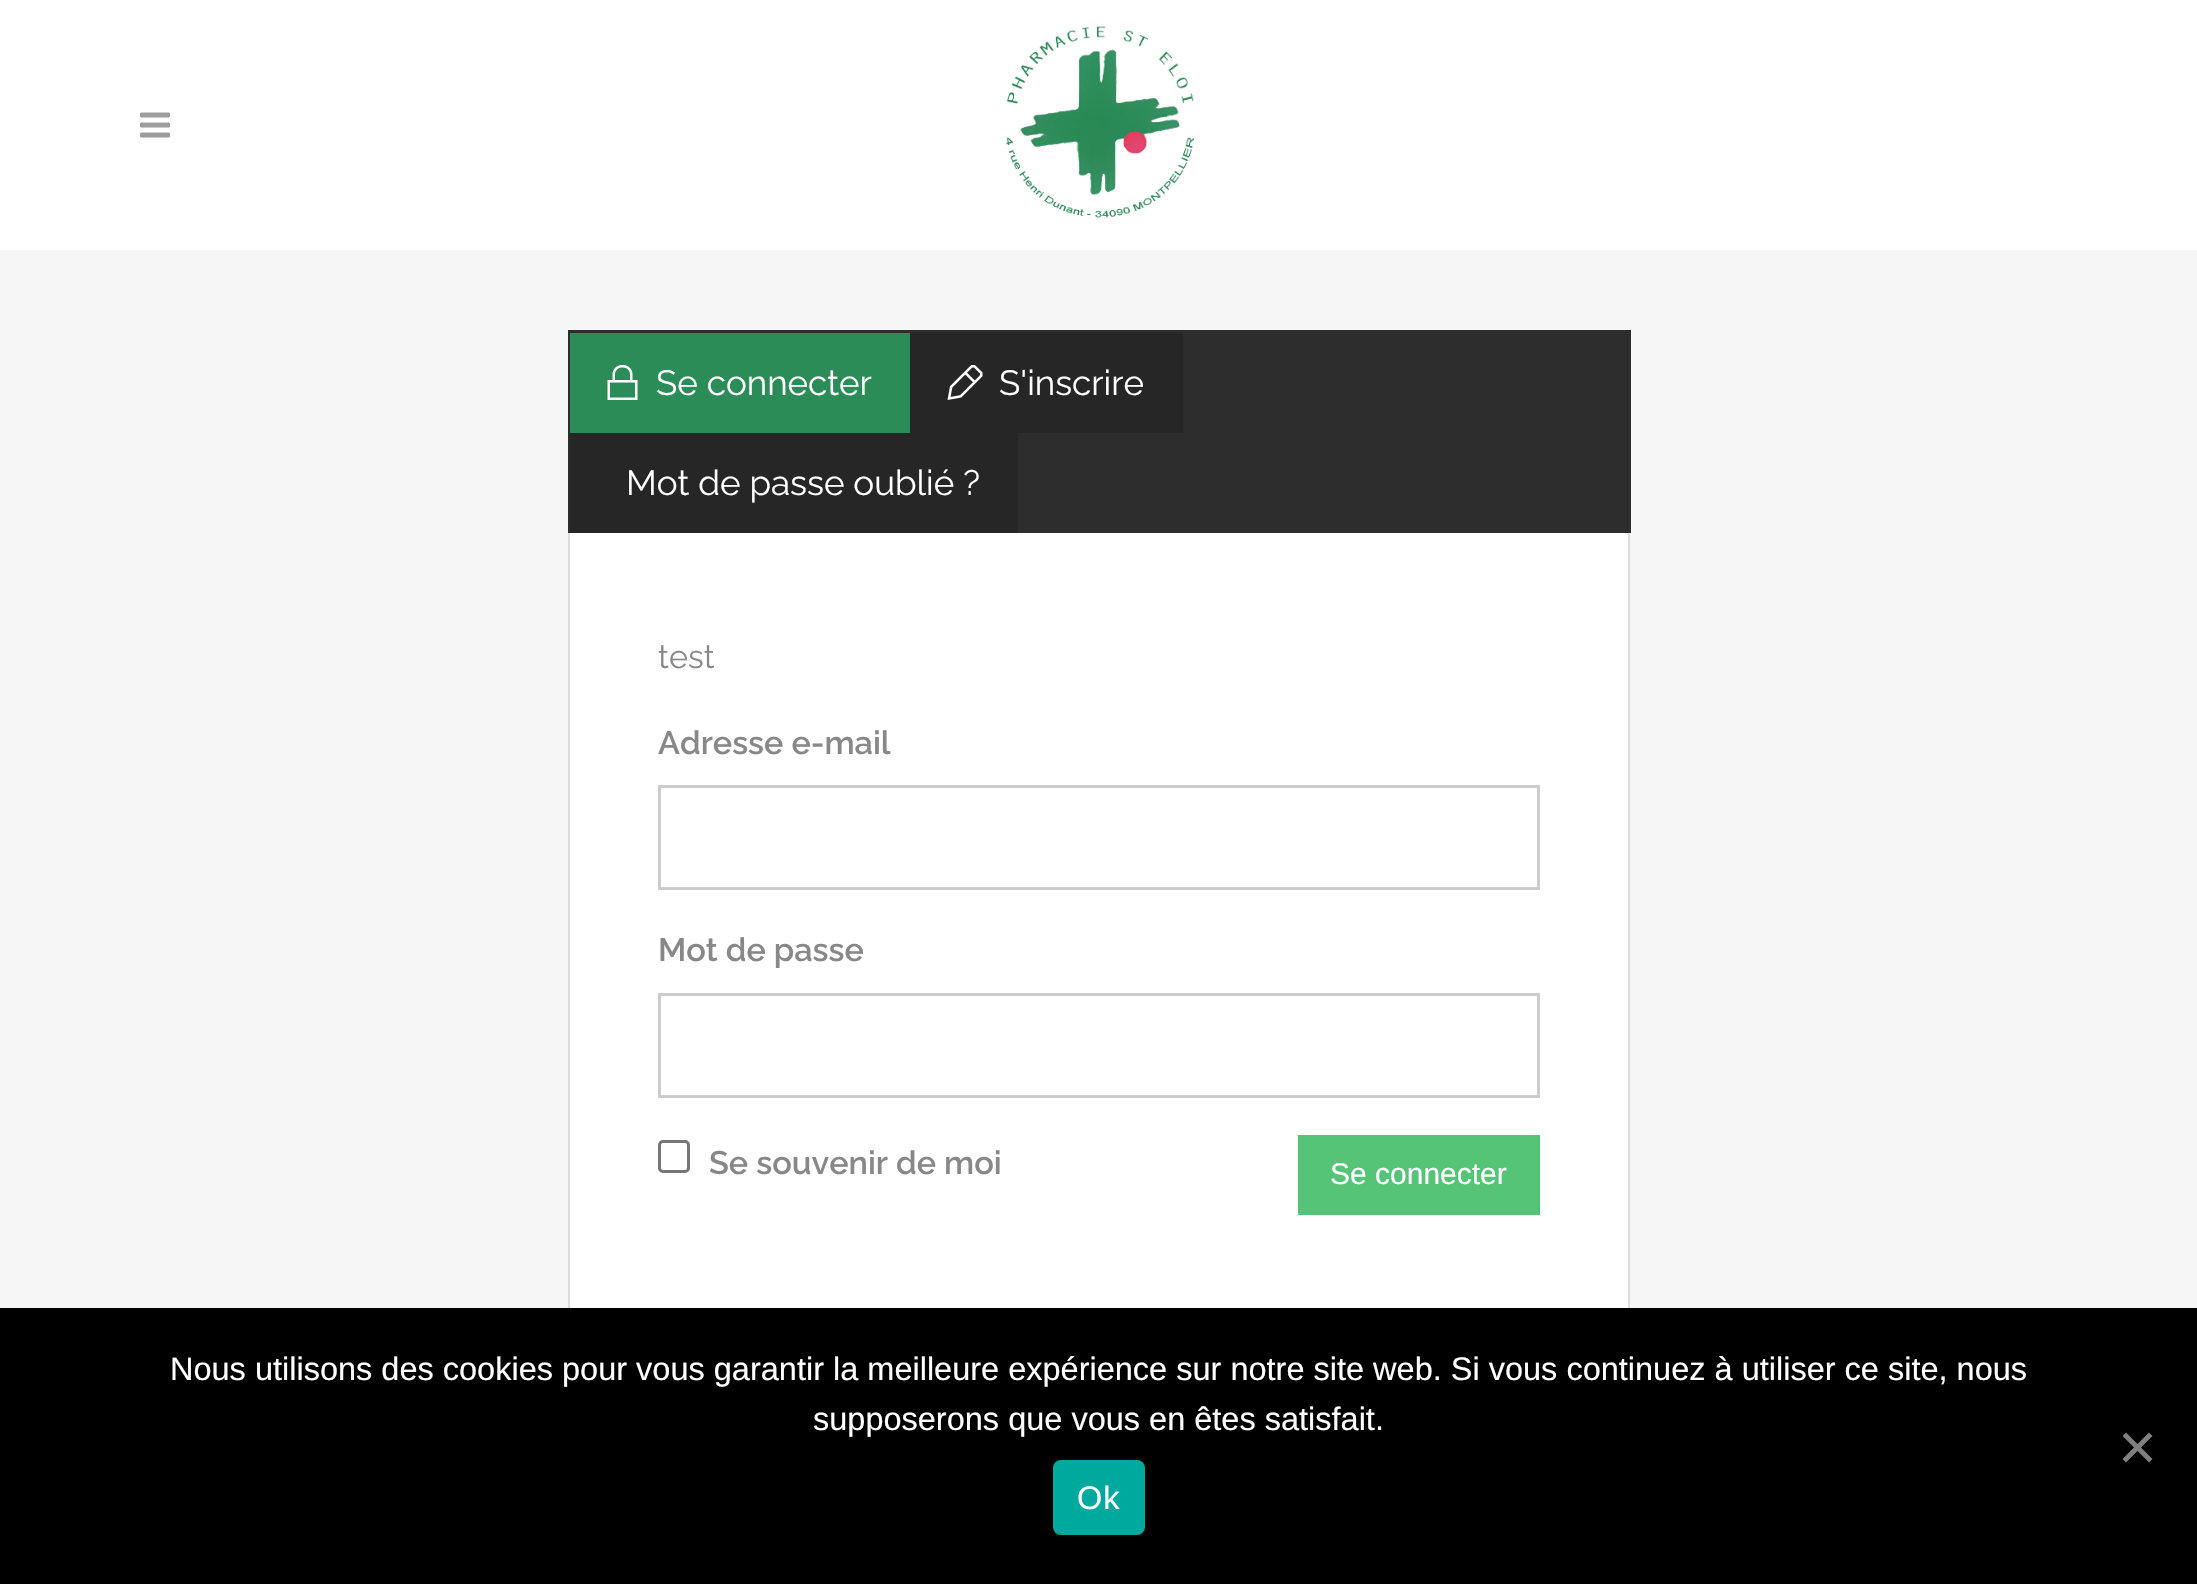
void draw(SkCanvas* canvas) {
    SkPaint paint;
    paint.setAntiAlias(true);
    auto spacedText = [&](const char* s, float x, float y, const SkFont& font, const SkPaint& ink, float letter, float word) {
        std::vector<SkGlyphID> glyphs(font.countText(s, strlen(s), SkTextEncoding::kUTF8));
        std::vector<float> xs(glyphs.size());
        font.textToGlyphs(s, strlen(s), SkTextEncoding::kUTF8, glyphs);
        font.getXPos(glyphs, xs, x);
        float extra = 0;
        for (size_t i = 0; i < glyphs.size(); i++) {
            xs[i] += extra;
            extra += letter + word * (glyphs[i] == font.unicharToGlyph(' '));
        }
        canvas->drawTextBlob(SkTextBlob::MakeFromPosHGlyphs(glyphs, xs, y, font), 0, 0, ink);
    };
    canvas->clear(0xFFF6F6F6);
    paint.setColor(0xFFFFFFFF);
    canvas->drawRect(SkRect::MakeXYWH(0, 0, 2197, 250), paint);
    canvas->drawImageRect(SkImages::DeferredFromEncodedData(SkData::MakeFromFileName("img1.png")), SkRect::MakeXYWH(140, 112, 30, 26), SkSamplingOptions());
    canvas->drawImageRect(SkImages::DeferredFromEncodedData(SkData::MakeFromFileName("img2.png")), SkRect::MakeXYWH(1006, 26, 189, 192), SkSamplingOptions());
    canvas->drawRect(SkRect::MakeXYWH(570, 533, 1058, 775), paint);
    paint.setColor(0xFFDDDDDD);
    canvas->drawPath(SkPathBuilder(SkPathFillType::kEvenOdd).moveTo(568, 532).lineTo(1630, 532).lineTo(1630, 1310).cubicTo(1630, 1314, 1627, 1318, 1622, 1318).lineTo(575, 1318).cubicTo(571, 1318, 568, 1314, 568, 1310).close().moveTo(570, 532).lineTo(1628, 532).lineTo(1628, 1310).cubicTo(1628, 1313, 1625, 1315, 1622, 1315).lineTo(575, 1315).cubicTo(572, 1315, 570, 1313, 570, 1310).close().detach(), paint);
    paint.setColor(0xFF2D2D2D);
    canvas->drawRect(SkRect::MakeXYWH(568, 330, 1063, 203), paint);
    paint.setColor(0xFF2B8C57);
    canvas->drawRect(SkRect::MakeXYWH(570, 333, 340, 100), paint);
    canvas->drawImageRect(SkImages::DeferredFromEncodedData(SkData::MakeFromFileName("img3.png")), SkRect::MakeXYWH(607, 365, 31, 35), SkSamplingOptions());
    SkFont font1(fontMgr->matchFamilyStyle("Raleway", SkFontStyle::Normal()), 35);
    font1.setSubpixel(true);
    paint.setColor(0xFFFFFFFF);
    canvas->drawString("Se connecter", 656, 395, font1, paint);
    paint.setColor(0xFF262626);
    canvas->drawRect(SkRect::MakeXYWH(910, 333, 273, 100), paint);
    canvas->drawImageRect(SkImages::DeferredFromEncodedData(SkData::MakeFromFileName("img4.png")), SkRect::MakeXYWH(947, 365, 36, 35), SkSamplingOptions());
    paint.setColor(0xFFFFFFFF);
    canvas->drawString("S'inscrire", 999, 395, font1, paint);
    paint.setColor(0xFF262626);
    canvas->drawRect(SkRect::MakeXYWH(570, 433, 448, 100), paint);
    paint.setColor(0xFFFFFFFF);
    canvas->drawString("Mot de passe oublié ?", 626, 495, font1, paint);
    SkFont font2(fontMgr->matchFamilyStyle("Raleway", SkFontStyle::Normal()), 32.5f);
    font2.setSubpixel(true);
    paint.setColor(0xFF888888);
    canvas->drawString("test", 658, 668, font2, paint);
    SkFont font3(fontMgr->matchFamilyStyle("Raleway", SkFontStyle(600, SkFontStyle::kNormal_Width, SkFontStyle::kUpright_Slant)), 32.5f);
    font3.setSubpixel(true);
    canvas->drawString("Adresse e-mail", 658, 754, font3, paint);
    paint.setStyle(SkPaint::kStroke_Style);
    paint.setStrokeWidth(3);
    paint.setColor(0xFFCCCCCC);
    canvas->drawRect(SkRect::MakeXYWH(659.5f, 786.5f, 879, 102), paint);
    paint.setStyle(SkPaint::kFill_Style);
    paint.setColor(0xFF888888);
    canvas->drawString("Mot de passe", 658, 961, font3, paint);
    paint.setStyle(SkPaint::kStroke_Style);
    paint.setColor(0xFFCCCCCC);
    canvas->drawRect(SkRect::MakeXYWH(659.5f, 994.5f, 879, 102), paint);
    paint.setColor(0xFF767676);
    canvas->drawRoundRect(SkRect::MakeXYWH(659.5f, 1141.5f, 29, 30), 3.5f, 3.5f, paint);
    paint.setStyle(SkPaint::kFill_Style);
    paint.setColor(0xFF888888);
    canvas->drawString("Se souvenir de moi", 709, 1174, font3, paint);
    paint.setColor(0xFF56C477);
    canvas->drawRect(SkRect::MakeXYWH(1298, 1135, 242, 80), paint);
    SkFont font4(fontMgr->matchFamilyStyle("Liberation Sans", SkFontStyle::Normal()), 30);
    font4.setSubpixel(true);
    paint.setColor(0xFFFFFFFF);
    canvas->drawString("Se connecter", 1330, 1184, font4, paint);
    paint.setColor(0xFF000000);
    canvas->drawRect(SkRect::MakeXYWH(0, 1308, 2197, 276), paint);
    SkFont font5(fontMgr->matchFamilyStyle("Liberation Sans", SkFontStyle::Normal()), 32.5f);
    font5.setSubpixel(true);
    paint.setColor(0xFFFFFFFF);
    canvas->drawString("Nous utilisons des cookies pour vous garantir la meilleure expérience sur notre site web. Si vous continuez à utiliser ce site, nous", 170, 1380, font5, paint);
    canvas->drawString("supposerons que vous en êtes satisfait.", 813, 1430, font5, paint);
    paint.setColor(0xFF808080);
    canvas->drawPath(SkPathBuilder().moveTo(2149, 1432.5f).lineTo(2152.5f, 1436).lineTo(2126, 1462.5f).lineTo(2122.5f, 1459).close().detach(), paint);
    canvas->drawPath(SkPathBuilder().moveTo(2122.5f, 1436).lineTo(2126, 1432.5f).lineTo(2152.5f, 1459).lineTo(2149, 1462.5f).close().detach(), paint);
    paint.setColor(0xFF00A99D);
    canvas->drawRoundRect(SkRect::MakeXYWH(1053, 1460, 92, 75), 8, 8, paint);
    paint.setColor(0xFFFFFFFF);
    spacedText("Ok", 1077, 1509, font5, paint, 1, 0);
}
